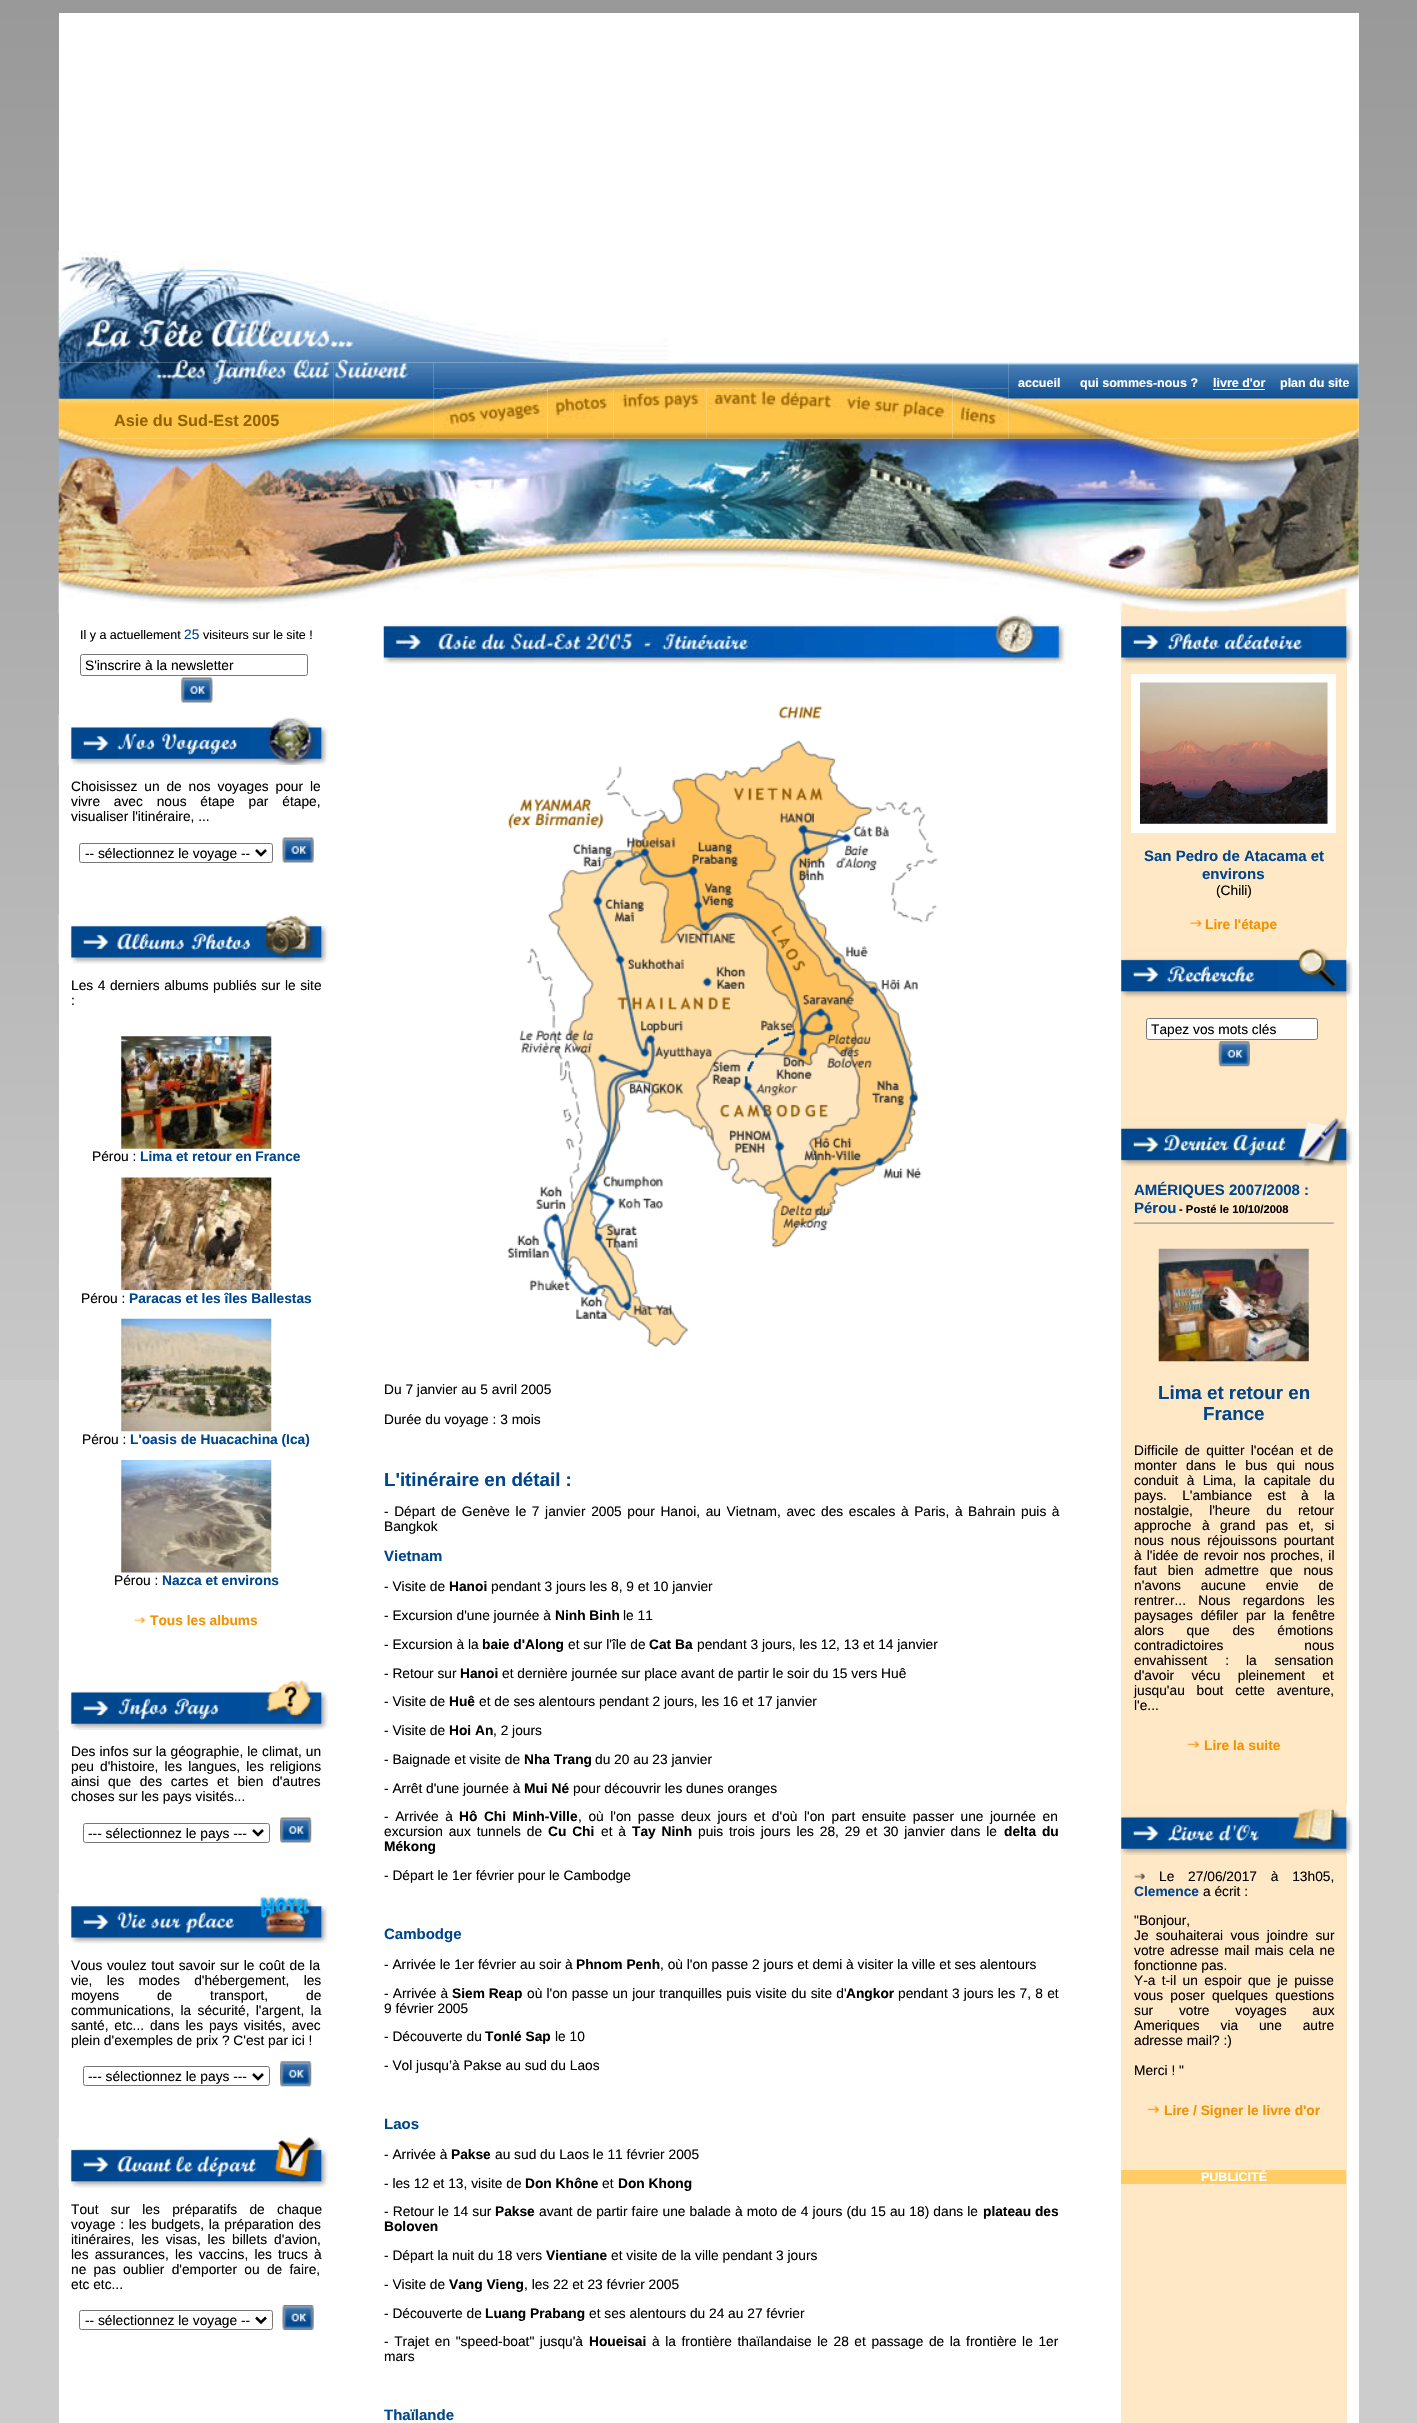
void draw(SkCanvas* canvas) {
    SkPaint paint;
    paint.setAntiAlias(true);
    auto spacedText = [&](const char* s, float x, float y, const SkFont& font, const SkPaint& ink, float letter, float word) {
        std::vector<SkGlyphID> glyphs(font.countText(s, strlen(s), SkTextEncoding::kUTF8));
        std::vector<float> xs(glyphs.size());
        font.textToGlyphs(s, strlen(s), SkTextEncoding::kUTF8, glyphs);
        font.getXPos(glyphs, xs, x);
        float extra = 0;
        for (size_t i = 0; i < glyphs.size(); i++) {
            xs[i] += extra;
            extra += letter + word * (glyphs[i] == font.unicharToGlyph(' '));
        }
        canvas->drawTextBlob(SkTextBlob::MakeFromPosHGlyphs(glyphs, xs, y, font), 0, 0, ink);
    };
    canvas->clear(0xFFCCCCCC);
    canvas->drawImageRect(SkImages::DeferredFromEncodedData(SkData::MakeFromFileName("img1.png")), SkRect::MakeXYWH(0, 0, 1417, 1380), SkSamplingOptions());
    paint.setColor(0xFFFFFFFF);
    canvas->drawRect(SkRect::MakeXYWH(59, 13, 1300, 2410), paint);
    canvas->drawImageRect(SkImages::DeferredFromEncodedData(SkData::MakeFromFileName("img13.png")), SkRect::MakeXYWH(58, 362, 276, 77), SkSamplingOptions());
    canvas->drawImageRect(SkImages::DeferredFromEncodedData(SkData::MakeFromFileName("img3.png")), SkRect::MakeXYWH(333, 362, 101, 77), SkSamplingOptions());
    canvas->drawImageRect(SkImages::DeferredFromEncodedData(SkData::MakeFromFileName("img4.png")), SkRect::MakeXYWH(433, 362, 576, 27), SkSamplingOptions());
    canvas->drawImageRect(SkImages::DeferredFromEncodedData(SkData::MakeFromFileName("img2.png")), SkRect::MakeXYWH(58, 251, 626, 112), SkSamplingOptions());
    canvas->drawImageRect(SkImages::DeferredFromEncodedData(SkData::MakeFromFileName("img11.png")), SkRect::MakeXYWH(1008, 362, 351, 37), SkSamplingOptions());
    canvas->drawImageRect(SkImages::DeferredFromEncodedData(SkData::MakeFromFileName("img12.png")), SkRect::MakeXYWH(1008, 398, 351, 41), SkSamplingOptions());
    canvas->drawImageRect(SkImages::DeferredFromEncodedData(SkData::MakeFromFileName("img14.png")), SkRect::MakeXYWH(58, 438, 1301, 176), SkSamplingOptions());
    canvas->drawImageRect(SkImages::DeferredFromEncodedData(SkData::MakeFromFileName("img5.png")), SkRect::MakeXYWH(433, 388, 115, 51), SkSamplingOptions());
    canvas->drawImageRect(SkImages::DeferredFromEncodedData(SkData::MakeFromFileName("img6.png")), SkRect::MakeXYWH(547, 388, 67, 51), SkSamplingOptions());
    canvas->drawImageRect(SkImages::DeferredFromEncodedData(SkData::MakeFromFileName("img7.png")), SkRect::MakeXYWH(613, 388, 94, 51), SkSamplingOptions());
    canvas->drawImageRect(SkImages::DeferredFromEncodedData(SkData::MakeFromFileName("img8.png")), SkRect::MakeXYWH(706, 388, 134, 51), SkSamplingOptions());
    canvas->drawImageRect(SkImages::DeferredFromEncodedData(SkData::MakeFromFileName("img9.png")), SkRect::MakeXYWH(840, 388, 113, 51), SkSamplingOptions());
    canvas->drawImageRect(SkImages::DeferredFromEncodedData(SkData::MakeFromFileName("img10.png")), SkRect::MakeXYWH(952, 388, 57, 51), SkSamplingOptions());
    SkFont font1(fontMgr->matchFamilyStyle("Liberation Sans", SkFontStyle::Bold()), 12.5f);
    font1.setSubpixel(true);
    canvas->drawString("accueil", 1018, 387, font1, paint);
    canvas->drawString("qui sommes-nous ?", 1080, 387, font1, paint);
    canvas->drawString("livre d'or", 1213, 387, font1, paint);
    canvas->drawRect(SkRect::MakeXYWH(1213, 389, 52, 1), paint);
    canvas->drawString("plan du site", 1280, 387, font1, paint);
    SkFont font2(fontMgr->matchFamilyStyle("Liberation Sans", SkFontStyle::Bold()), 16.25f);
    font2.setSubpixel(true);
    paint.setColor(0xFF936300);
    canvas->drawString("Asie du Sud-Est 2005", 114, 426, font2, paint);
    SkFont font3(fontMgr->matchFamilyStyle("Liberation Sans", SkFontStyle::Normal()), 12.5f);
    font3.setSubpixel(true);
    paint.setColor(0xFF000000);
    canvas->drawString("Il y a actuellement", 80, 639, font3, paint);
    SkFont font4(fontMgr->matchFamilyStyle("Liberation Sans", SkFontStyle::Normal()), 13.75f);
    font4.setSubpixel(true);
    paint.setColor(0xFF00468C);
    canvas->drawString("25", 184, 639, font4, paint);
    paint.setColor(0xFF000000);
    canvas->drawString("visiteurs sur le site !", 203, 639, font3, paint);
    paint.setStyle(SkPaint::kStroke_Style);
    paint.setStrokeWidth(1);
    paint.setColor(0xFF767676);
    canvas->drawRoundRect(SkRect::MakeXYWH(80.5f, 654.5f, 227, 21), 2, 2, paint);
    paint.setStyle(SkPaint::kFill_Style);
    paint.setColor(0xFF000000);
    canvas->drawString("S'inscrire à la newsletter", 85, 670, font4, paint);
    canvas->drawImageRect(SkImages::DeferredFromEncodedData(SkData::MakeFromFileName("img15.png")), SkRect::MakeXYWH(181, 677, 32, 26), SkSamplingOptions());
    canvas->drawImageRect(SkImages::DeferredFromEncodedData(SkData::MakeFromFileName("img16.png")), SkRect::MakeXYWH(58, 715, 270, 50), SkSamplingOptions());
    spacedText("Choisissez un de nos voyages pour le", 71, 791, font4, paint, 0, 3);
    spacedText("vivre avec nous étape par étape,", 71, 806, font4, paint, 0, 10);
    canvas->drawString("visualiser l'itinéraire, ...", 71, 821, font4, paint);
    paint.setStyle(SkPaint::kStroke_Style);
    paint.setColor(0xFF767676);
    canvas->drawRoundRect(SkRect::MakeXYWH(79.5f, 843.5f, 193, 19), 2, 2, paint);
    paint.setStrokeWidth(2.5f);
    paint.setColor(0xFF000000);
    canvas->drawPath(SkPathBuilder().moveTo(256, 850).lineTo(261, 855).lineTo(266, 850).detach(), paint);
    paint.setStyle(SkPaint::kFill_Style);
    canvas->drawString("-- sélectionnez le voyage --", 85, 858, font4, paint);
    canvas->drawImageRect(SkImages::DeferredFromEncodedData(SkData::MakeFromFileName("img17.png")), SkRect::MakeXYWH(282, 837, 32, 26), SkSamplingOptions());
    canvas->drawImageRect(SkImages::DeferredFromEncodedData(SkData::MakeFromFileName("img18.png")), SkRect::MakeXYWH(58, 913, 270, 51), SkSamplingOptions());
    spacedText("Les 4 derniers albums publiés sur le site", 71, 990, font4, paint, 0, 0.75f);
    canvas->drawString(":", 71, 1005, font4, paint);
    canvas->drawImageRect(SkImages::DeferredFromEncodedData(SkData::MakeFromFileName("img19.png")), SkRect::MakeXYWH(121, 1036, 151, 113), SkSamplingOptions());
    canvas->drawString("Pérou :", 92, 1161, font4, paint);
    SkFont font5(fontMgr->matchFamilyStyle("Liberation Sans", SkFontStyle::Bold()), 13.75f);
    font5.setSubpixel(true);
    paint.setColor(0xFF00468C);
    canvas->drawString("Lima et retour en France", 140, 1161, font5, paint);
    canvas->drawImageRect(SkImages::DeferredFromEncodedData(SkData::MakeFromFileName("img20.png")), SkRect::MakeXYWH(121, 1177, 151, 113), SkSamplingOptions());
    paint.setColor(0xFF000000);
    canvas->drawString("Pérou :", 81, 1303, font4, paint);
    paint.setColor(0xFF00468C);
    canvas->drawString("Paracas et les îles Ballestas", 129, 1303, font5, paint);
    canvas->drawImageRect(SkImages::DeferredFromEncodedData(SkData::MakeFromFileName("img21.png")), SkRect::MakeXYWH(121, 1318, 151, 114), SkSamplingOptions());
    paint.setColor(0xFF000000);
    canvas->drawString("Pérou :", 82, 1444, font4, paint);
    paint.setColor(0xFF00468C);
    canvas->drawString("L'oasis de Huacachina (Ica)", 130, 1444, font5, paint);
    canvas->drawImageRect(SkImages::DeferredFromEncodedData(SkData::MakeFromFileName("img22.png")), SkRect::MakeXYWH(121, 1460, 151, 113), SkSamplingOptions());
    paint.setColor(0xFF000000);
    canvas->drawString("Pérou :", 114, 1585, font4, paint);
    paint.setColor(0xFF00468C);
    canvas->drawString("Nazca et environs", 162, 1585, font5, paint);
    canvas->drawImageRect(SkImages::DeferredFromEncodedData(SkData::MakeFromFileName("img23.png")), SkRect::MakeXYWH(133, 1617, 12, 7), SkSamplingOptions());
    paint.setColor(0xFFF29200);
    canvas->drawString("Tous les albums", 150, 1625, font5, paint);
    canvas->drawImageRect(SkImages::DeferredFromEncodedData(SkData::MakeFromFileName("img24.png")), SkRect::MakeXYWH(58, 1680, 270, 50), SkSamplingOptions());
    paint.setColor(0xFF000000);
    spacedText("Des infos sur la géographie, le climat, un", 71, 1756, font4, paint, 0, 0.25f);
    spacedText("peu d'histoire, les langues, les religions", 71, 1771, font4, paint, 0, 2.25f);
    spacedText("ainsi que des cartes et bien d'autres", 71, 1786, font4, paint, 0, 5);
    canvas->drawString("choses sur les pays visités...", 71, 1801, font4, paint);
    paint.setStyle(SkPaint::kStroke_Style);
    paint.setStrokeWidth(1);
    paint.setColor(0xFF767676);
    canvas->drawRoundRect(SkRect::MakeXYWH(83.5f, 1823.5f, 186, 19), 2, 2, paint);
    paint.setStrokeWidth(2.5f);
    paint.setColor(0xFF000000);
    canvas->drawPath(SkPathBuilder().moveTo(253, 1830).lineTo(258, 1835).lineTo(263, 1830).detach(), paint);
    paint.setStyle(SkPaint::kFill_Style);
    canvas->drawString("--- sélectionnez le pays ---", 88, 1838, font4, paint);
    canvas->drawImageRect(SkImages::DeferredFromEncodedData(SkData::MakeFromFileName("img25.png")), SkRect::MakeXYWH(280, 1817, 32, 26), SkSamplingOptions());
    canvas->drawImageRect(SkImages::DeferredFromEncodedData(SkData::MakeFromFileName("img26.png")), SkRect::MakeXYWH(58, 1894, 270, 50), SkSamplingOptions());
    spacedText("Vous voulez tout savoir sur le coût de la", 71, 1970, font4, paint, 0, 0.75f);
    spacedText("vie, les modes d'hébergement, les", 71, 1985, font4, paint, 0, 10.5f);
    spacedText("moyens de transport, de", 71, 2000, font4, paint, 0, 34);
    spacedText("communications, la sécurité, l'argent, la", 71, 2015, font4, paint, 0, 2.5f);
    spacedText("santé, etc... dans les pays visités, avec", 71, 2030, font4, paint, 0, 2);
    canvas->drawString("plein d'exemples de prix ? C'est par ici !", 71, 2045, font4, paint);
    paint.setStyle(SkPaint::kStroke_Style);
    paint.setStrokeWidth(1);
    paint.setColor(0xFF767676);
    canvas->drawRoundRect(SkRect::MakeXYWH(83.5f, 2066.5f, 186, 19), 2, 2, paint);
    paint.setStrokeWidth(2.5f);
    paint.setColor(0xFF000000);
    canvas->drawPath(SkPathBuilder().moveTo(253, 2074).lineTo(258, 2079).lineTo(263, 2074).detach(), paint);
    paint.setStyle(SkPaint::kFill_Style);
    canvas->drawString("--- sélectionnez le pays ---", 88, 2081, font4, paint);
    canvas->drawImageRect(SkImages::DeferredFromEncodedData(SkData::MakeFromFileName("img27.png")), SkRect::MakeXYWH(280, 2061, 32, 26), SkSamplingOptions());
    canvas->drawImageRect(SkImages::DeferredFromEncodedData(SkData::MakeFromFileName("img28.png")), SkRect::MakeXYWH(58, 2137, 270, 51), SkSamplingOptions());
    spacedText("Tout sur les préparatifs de chaque", 71, 2214, font4, paint, 0, 8.5f);
    spacedText("voyage : les budgets, la préparation des", 71, 2229, font4, paint, 0, 1);
    spacedText("itinéraires, les visas, les billets d'avion,", 71, 2244, font4, paint, 0, 3);
    spacedText("les assurances,", 71, 2259, font4, paint, 0, 2.25f);
    spacedText("les vaccins, les trucs à", 175, 2259, font4, paint, 0, 2.25f);
    spacedText("ne pas oublier d'emporter ou de faire,", 71, 2274, font4, paint, 0, 3.5f);
    canvas->drawString("etc etc...", 71, 2289, font4, paint);
    paint.setStyle(SkPaint::kStroke_Style);
    paint.setStrokeWidth(1);
    paint.setColor(0xFF767676);
    canvas->drawRoundRect(SkRect::MakeXYWH(79.5f, 2310.5f, 193, 19), 2, 2, paint);
    paint.setStrokeWidth(2.5f);
    paint.setColor(0xFF000000);
    canvas->drawPath(SkPathBuilder().moveTo(256, 2317.5f).lineTo(261, 2322.5f).lineTo(266, 2317.5f).detach(), paint);
    paint.setStyle(SkPaint::kFill_Style);
    canvas->drawString("-- sélectionnez le voyage --", 85, 2325, font4, paint);
    canvas->drawImageRect(SkImages::DeferredFromEncodedData(SkData::MakeFromFileName("img29.png")), SkRect::MakeXYWH(282, 2305, 32, 25), SkSamplingOptions());
    canvas->drawImageRect(SkImages::DeferredFromEncodedData(SkData::MakeFromFileName("img30.png")), SkRect::MakeXYWH(383, 614, 683, 50), SkSamplingOptions());
    canvas->drawImageRect(SkImages::DeferredFromEncodedData(SkData::MakeFromFileName("img31.png")), SkRect::MakeXYWH(507, 706, 431, 642), SkSamplingOptions());
    canvas->drawString("Du 7 janvier au 5 avril 2005", 384, 1394, font4, paint);
    canvas->drawString("Durée du voyage : 3 mois", 384, 1424, font4, paint);
    SkFont font6(fontMgr->matchFamilyStyle("Liberation Sans", SkFontStyle::Bold()), 18.75f);
    font6.setSubpixel(true);
    paint.setColor(0xFF00468C);
    canvas->drawString("L'itinéraire en détail :", 384, 1486, font6, paint);
    paint.setColor(0xFF000000);
    spacedText("- Départ de Genève le 7 janvier 2005 pour Hanoi, au Vietnam, avec des escales à Paris, à Bahrain puis à", 384, 1516, font4, paint, 0, 1.75f);
    canvas->drawString("Bangkok", 384, 1531, font4, paint);
    SkFont font7(fontMgr->matchFamilyStyle("Liberation Sans", SkFontStyle::Bold()), 15);
    font7.setSubpixel(true);
    paint.setColor(0xFF00468C);
    canvas->drawString("Vietnam", 384, 1561, font7, paint);
    paint.setColor(0xFF000000);
    canvas->drawString("- Visite de", 384, 1591, font4, paint);
    canvas->drawString("Hanoi", 449, 1591, font5, paint);
    canvas->drawString("pendant 3 jours les 8, 9 et 10 janvier", 491, 1591, font4, paint);
    canvas->drawString("- Excursion d'une journée à", 384, 1620, font4, paint);
    canvas->drawString("Ninh Binh", 555, 1620, font5, paint);
    canvas->drawString("le 11", 623, 1620, font4, paint);
    canvas->drawString("- Excursion à la", 384, 1649, font4, paint);
    canvas->drawString("baie d'Along", 482, 1649, font5, paint);
    canvas->drawString("et sur l'île de", 568, 1649, font4, paint);
    canvas->drawString("Cat Ba", 649, 1649, font5, paint);
    canvas->drawString("pendant 3 jours, les 12, 13 et 14 janvier", 697, 1649, font4, paint);
    canvas->drawString("- Retour sur", 384, 1678, font4, paint);
    canvas->drawString("Hanoi", 460, 1678, font5, paint);
    canvas->drawString("et dernière journée sur place avant de partir le soir du 15 vers Huê", 502, 1678, font4, paint);
    canvas->drawString("- Visite de", 384, 1706, font4, paint);
    canvas->drawString("Huê", 449, 1706, font5, paint);
    canvas->drawString("et de ses alentours pendant 2 jours, les 16 et 17 janvier", 479, 1706, font4, paint);
    canvas->drawString("- Visite de", 384, 1735, font4, paint);
    canvas->drawString("Hoi An", 449, 1735, font5, paint);
    canvas->drawString(", 2 jours", 493, 1735, font4, paint);
    canvas->drawString("- Baignade et visite de", 384, 1764, font4, paint);
    canvas->drawString("Nha Trang", 524, 1764, font5, paint);
    canvas->drawString("du 20 au 23 janvier", 595, 1764, font4, paint);
    canvas->drawString("- Arrêt d'une journée à", 384, 1793, font4, paint);
    canvas->drawString("Mui Né", 524, 1793, font5, paint);
    canvas->drawString("pour découvrir les dunes oranges", 573, 1793, font4, paint);
    spacedText("- Arrivée à", 384, 1821, font4, paint, 0, 2.75f);
    spacedText("Hô Chi Minh-Ville", 459, 1821, font5, paint, 0, 2.75f);
    spacedText(", où l'on passe deux jours et d'où l'on part ensuite passer une journée en", 578, 1821, font4, paint, 0, 2.75f);
    spacedText("excursion aux tunnels de", 384, 1836, font4, paint, 0, 2);
    spacedText("Cu Chi", 548, 1836, font5, paint, 0, 2);
    spacedText("et à", 601, 1836, font4, paint, 0, 2);
    spacedText("Tay Ninh", 632, 1836, font5, paint, 0, 2);
    canvas->drawString("puis", 698, 1836, font4, paint);
    spacedText("trois jours les 28, 29 et 30 janvier dans le", 729, 1836, font4, paint, 0, 2);
    spacedText("delta du", 1004, 1836, font5, paint, 0, 2);
    canvas->drawString("Mékong", 384, 1851, font5, paint);
    canvas->drawString("- Départ le 1er février pour le Cambodge", 384, 1880, font4, paint);
    paint.setColor(0xFF00468C);
    canvas->drawString("Cambodge", 384, 1939, font7, paint);
    paint.setColor(0xFF000000);
    canvas->drawString("- Arrivée le 1er février au soir à", 384, 1969, font4, paint);
    canvas->drawString("Phnom Penh", 576, 1969, font5, paint);
    canvas->drawString(", où l'on passe 2 jours et demi à visiter la ville et ses alentours", 660, 1969, font4, paint);
    spacedText("- Arrivée à", 384, 1998, font4, paint, 0, 0.4f);
    canvas->drawString("Siem Reap", 452, 1998, font5, paint);
    spacedText("où l'on passe un jour tranquilles puis visite du site d'", 527, 1998, font4, paint, 0, 0.4f);
    canvas->drawString("Angkor", 846, 1998, font5, paint);
    spacedText("pendant 3 jours les 7, 8 et", 898, 1998, font4, paint, 0, 0.4f);
    canvas->drawString("9 février 2005", 384, 2013, font4, paint);
    canvas->drawString("- Découverte du", 384, 2041, font4, paint);
    canvas->drawString("Tonlé Sap", 485, 2041, font5, paint);
    canvas->drawString("le 10", 555, 2041, font4, paint);
    canvas->drawString("- Vol jusqu’à Pakse au sud du Laos", 384, 2070, font4, paint);
    paint.setColor(0xFF00468C);
    canvas->drawString("Laos", 384, 2129, font7, paint);
    paint.setColor(0xFF000000);
    canvas->drawString("- Arrivée à", 384, 2159, font4, paint);
    canvas->drawString("Pakse", 451, 2159, font5, paint);
    canvas->drawString("au sud du Laos le 11 février 2005", 495, 2159, font4, paint);
    canvas->drawString("- les 12 et 13, visite de", 384, 2188, font4, paint);
    canvas->drawString("Don Khône", 525, 2188, font5, paint);
    canvas->drawString("et", 602, 2188, font4, paint);
    canvas->drawString("Don Khong", 618, 2188, font5, paint);
    spacedText("- Retour le 14 sur", 384, 2216, font4, paint, 0, 0.3f);
    canvas->drawString("Pakse", 495, 2216, font5, paint);
    spacedText("avant de partir faire une balade à moto de 4 jours (du 15 au 18) dans le", 539, 2216, font4, paint, 0, 0.3f);
    canvas->drawString("plateau des", 983, 2216, font5, paint);
    canvas->drawString("Boloven", 384, 2231, font5, paint);
    canvas->drawString("- Départ la nuit du 18 vers", 384, 2260, font4, paint);
    canvas->drawString("Vientiane", 546, 2260, font5, paint);
    canvas->drawString("et visite de la ville pendant 3 jours", 611, 2260, font4, paint);
    canvas->drawString("- Visite de", 384, 2289, font4, paint);
    canvas->drawString("Vang Vieng", 449, 2289, font5, paint);
    canvas->drawString(", les 22 et 23 février 2005", 524, 2289, font4, paint);
    canvas->drawString("- Découverte de", 384, 2318, font4, paint);
    canvas->drawString("Luang Prabang", 485, 2318, font5, paint);
    canvas->drawString("et ses alentours du 24 au 27 février", 589, 2318, font4, paint);
    spacedText("- Trajet en \"speed-boat\" jusqu'à", 384, 2346, font4, paint, 0, 1.75f);
    canvas->drawString("Houeisai", 589, 2346, font5, paint);
    spacedText("à la frontière thaïlandaise le 28 et passage de la frontière le 1er", 652, 2346, font4, paint, 0, 1.75f);
    canvas->drawString("mars", 384, 2361, font4, paint);
    paint.setColor(0xFF00468C);
    canvas->drawString("Thaïlande", 384, 2420, font7, paint);
    paint.setColor(0xFFFFE8C6);
    canvas->drawRect(SkRect::MakeXYWH(1121, 613, 226, 1810), paint);
    canvas->drawImageRect(SkImages::DeferredFromEncodedData(SkData::MakeFromFileName("img32.png")), SkRect::MakeXYWH(1121, 613, 232, 51), SkSamplingOptions());
    paint.setStyle(SkPaint::kStroke_Style);
    paint.setStrokeWidth(9);
    paint.setColor(0xFFFFFFFF);
    canvas->drawRect(SkRect::MakeXYWH(1135.5f, 678.5f, 196, 150), paint);
    canvas->drawImageRect(SkImages::DeferredFromEncodedData(SkData::MakeFromFileName("img33.png")), SkRect::MakeXYWH(1140, 682, 188, 142), SkSamplingOptions());
    paint.setStyle(SkPaint::kFill_Style);
    paint.setColor(0xFF00468C);
    canvas->drawString("San Pedro de Atacama et", 1144, 861, font7, paint);
    canvas->drawString("environs", 1202, 879, font7, paint);
    paint.setColor(0xFF000000);
    canvas->drawString("(Chili)", 1216, 895, font4, paint);
    canvas->drawImageRect(SkImages::DeferredFromEncodedData(SkData::MakeFromFileName("img34.png")), SkRect::MakeXYWH(1190, 919, 12, 8), SkSamplingOptions());
    paint.setColor(0xFFF29200);
    canvas->drawString("Lire l'étape", 1205, 929, font5, paint);
    canvas->drawImageRect(SkImages::DeferredFromEncodedData(SkData::MakeFromFileName("img35.png")), SkRect::MakeXYWH(1121, 947, 232, 51), SkSamplingOptions());
    paint.setColor(0xFFFFFFFF);
    canvas->drawRoundRect(SkRect::MakeXYWH(1146.5f, 1018.5f, 171, 21), 2, 2, paint);
    paint.setStyle(SkPaint::kStroke_Style);
    paint.setStrokeWidth(1);
    paint.setColor(0xFF767676);
    canvas->drawRoundRect(SkRect::MakeXYWH(1146.5f, 1018.5f, 171, 21), 2, 2, paint);
    paint.setStyle(SkPaint::kFill_Style);
    paint.setColor(0xFF000000);
    canvas->drawString("Tapez vos mots clés", 1151, 1034, font4, paint);
    canvas->drawImageRect(SkImages::DeferredFromEncodedData(SkData::MakeFromFileName("img36.png")), SkRect::MakeXYWH(1218, 1041, 32, 26), SkSamplingOptions());
    canvas->drawImageRect(SkImages::DeferredFromEncodedData(SkData::MakeFromFileName("img37.png")), SkRect::MakeXYWH(1121, 1116, 233, 51), SkSamplingOptions());
    paint.setColor(0xFF00468C);
    canvas->drawString("AMÉRIQUES 2007/2008 :", 1134, 1195, font7, paint);
    canvas->drawString("Pérou", 1134, 1213, font7, paint);
    SkFont font8(fontMgr->matchFamilyStyle("Liberation Sans", SkFontStyle::Bold()), 11.25f);
    font8.setSubpixel(true);
    paint.setColor(0xFF000000);
    canvas->drawString("- Posté le 10/10/2008", 1179, 1213, font8, paint);
    canvas->drawImageRect(SkImages::DeferredFromEncodedData(SkData::MakeFromFileName("img38.png")), SkRect::MakeXYWH(1133, 1222, 201, 2), SkSamplingOptions());
    canvas->drawImageRect(SkImages::DeferredFromEncodedData(SkData::MakeFromFileName("img39.png")), SkRect::MakeXYWH(1158, 1248, 151, 114), SkSamplingOptions());
    paint.setColor(0xFF00468C);
    canvas->drawString("Lima et retour en", 1158, 1399, font6, paint);
    canvas->drawString("France", 1203, 1420, font6, paint);
    paint.setColor(0xFF000000);
    spacedText("Difficile de quitter l'océan et de", 1134, 1455, font4, paint, 0, 2.5f);
    spacedText("monter dans le bus qui nous", 1134, 1470, font4, paint, 0, 5.5f);
    spacedText("conduit à Lima, la capitale du", 1134, 1485, font4, paint, 0, 4.5f);
    spacedText("pays. L'ambiance est à la", 1134, 1500, font4, paint, 0, 11.5f);
    spacedText("nostalgie, l'heure du retour", 1134, 1515, font4, paint, 0, 12.5f);
    spacedText("approche à grand pas et, si", 1134, 1530, font4, paint, 0, 6.75f);
    spacedText("nous nous réjouissons pourtant", 1134, 1545, font4, paint, 0, 3);
    spacedText("à l'idée de revoir nos proches, il", 1134, 1560, font4, paint, 0, 1.25f);
    spacedText("faut bien admettre que nous", 1134, 1575, font4, paint, 0, 7);
    spacedText("n'avons aucune envie de", 1134, 1590, font4, paint, 0, 16);
    spacedText("rentrer... Nous regardons les", 1134, 1605, font4, paint, 0, 8.5f);
    spacedText("paysages défiler par la fenêtre", 1134, 1620, font4, paint, 0, 4);
    spacedText("alors que des émotions", 1134, 1635, font4, paint, 0, 19);
    spacedText("contradictoires nous", 1134, 1650, font4, paint, 0, 77);
    spacedText("envahissent :", 1134, 1665, font4, paint, 0, 14);
    spacedText("la sensation", 1246, 1665, font4, paint, 0, 14);
    spacedText("d'avoir vécu pleinement et", 1134, 1680, font4, paint, 0, 13.5f);
    spacedText("jusqu'au bout cette aventure,", 1134, 1695, font4, paint, 0, 8);
    canvas->drawString("l'e...", 1134, 1710, font4, paint);
    canvas->drawImageRect(SkImages::DeferredFromEncodedData(SkData::MakeFromFileName("img40.png")), SkRect::MakeXYWH(1187, 1741, 12, 7), SkSamplingOptions());
    paint.setColor(0xFFF29200);
    canvas->drawString("Lire la suite", 1204, 1750, font5, paint);
    canvas->drawImageRect(SkImages::DeferredFromEncodedData(SkData::MakeFromFileName("img41.png")), SkRect::MakeXYWH(1121, 1805, 232, 50), SkSamplingOptions());
    canvas->drawImageRect(SkImages::DeferredFromEncodedData(SkData::MakeFromFileName("img42.png")), SkRect::MakeXYWH(1133, 1873, 12, 8), SkSamplingOptions());
    paint.setColor(0xFF000000);
    spacedText("Le 27/06/2017 à 13h05,", 1159, 1881, font4, paint, 0, 10);
    paint.setColor(0xFF00468C);
    canvas->drawString("Clemence", 1134, 1896, font5, paint);
    paint.setColor(0xFF000000);
    canvas->drawString("a écrit :", 1203, 1896, font4, paint);
    canvas->drawString("\"Bonjour,", 1134, 1925, font4, paint);
    spacedText("Je souhaiterai vous joindre sur", 1134, 1940, font4, paint, 0, 3.5f);
    spacedText("votre adresse mail mais cela ne", 1134, 1955, font4, paint, 0, 1.5f);
    canvas->drawString("fonctionne pas.", 1134, 1970, font4, paint);
    spacedText("Y-a t-il un espoir que je puisse", 1134, 1985, font4, paint, 0, 2.5f);
    spacedText("vous poser quelques questions", 1134, 2000, font4, paint, 0, 3.5f);
    spacedText("sur votre voyages aux", 1134, 2015, font4, paint, 0, 22);
    spacedText("Ameriques via une autre", 1134, 2030, font4, paint, 0, 17);
    canvas->drawString("adresse mail? :)", 1134, 2045, font4, paint);
    canvas->drawString("Merci ! \"", 1134, 2075, font4, paint);
    canvas->drawImageRect(SkImages::DeferredFromEncodedData(SkData::MakeFromFileName("img43.png")), SkRect::MakeXYWH(1147, 2106, 12, 7), SkSamplingOptions());
    paint.setColor(0xFFF29200);
    canvas->drawString("Lire / Signer le livre d'or", 1164, 2115, font5, paint);
    paint.setColor(0xFFFFCC66);
    canvas->drawRect(SkRect::MakeXYWH(1121, 2170, 225, 14), paint);
    paint.setColor(0xFFFFFFFF);
    canvas->drawString("PUBLICITÉ", 1201, 2181, font1, paint);
}
